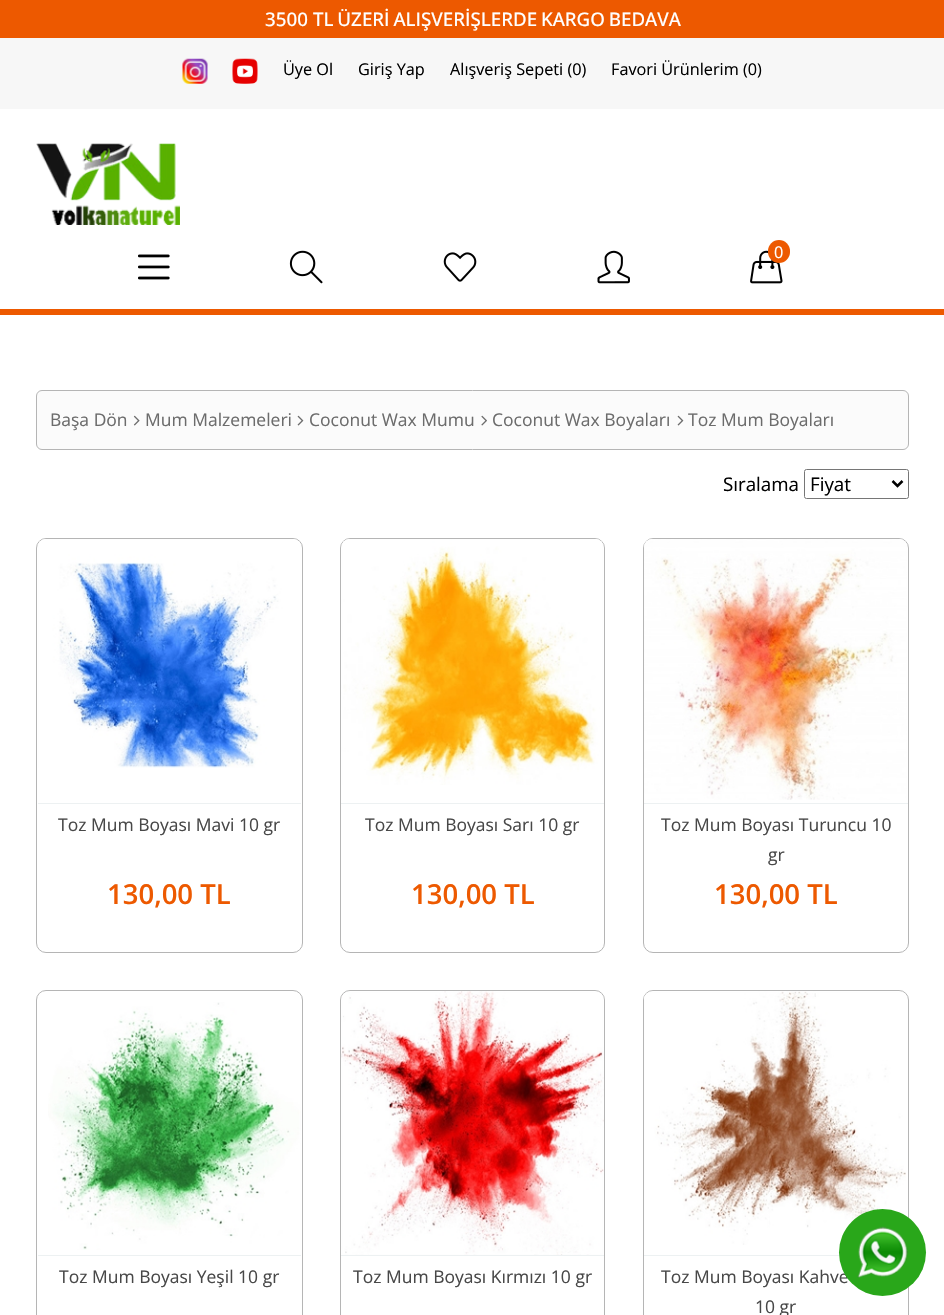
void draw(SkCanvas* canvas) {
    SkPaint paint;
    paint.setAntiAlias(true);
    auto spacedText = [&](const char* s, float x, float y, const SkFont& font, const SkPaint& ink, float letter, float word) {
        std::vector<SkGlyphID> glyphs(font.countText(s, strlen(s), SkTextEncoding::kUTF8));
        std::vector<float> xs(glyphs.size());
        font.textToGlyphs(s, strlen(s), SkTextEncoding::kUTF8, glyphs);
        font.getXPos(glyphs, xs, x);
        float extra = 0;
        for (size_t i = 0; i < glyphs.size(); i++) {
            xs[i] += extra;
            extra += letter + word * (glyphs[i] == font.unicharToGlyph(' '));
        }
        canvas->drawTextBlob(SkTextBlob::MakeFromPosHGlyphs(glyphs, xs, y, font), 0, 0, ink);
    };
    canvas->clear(0xFFFFFFFF);
    paint.setColor(0xFFED5900);
    canvas->drawRect(SkRect::MakeXYWH(0, 0, 944, 38), paint);
    SkFont font1(fontMgr->matchFamilyStyle("Open Sans", SkFontStyle(500, SkFontStyle::kNormal_Width, SkFontStyle::kUpright_Slant)), 18.75f);
    font1.setSubpixel(true);
    paint.setColor(0xFFFFFFFF);
    canvas->drawString("3500", 265, 26, font1, paint);
    spacedText("TL ÜZERİ ALIŞVERİŞLERDE KARGO BEDAVA", 313, 26, font1, paint, 0, -1);
    paint.setColor(0xFFF7F7F7);
    canvas->drawRect(SkRect::MakeXYWH(0, 38, 944, 71), paint);
    canvas->drawImageRect(SkImages::DeferredFromEncodedData(SkData::MakeFromFileName("img1.png")), SkRect::MakeXYWH(182, 58, 26, 26), SkSamplingOptions());
    canvas->drawImageRect(SkImages::DeferredFromEncodedData(SkData::MakeFromFileName("img2.png")), SkRect::MakeXYWH(232, 58, 26, 26), SkSamplingOptions());
    SkFont font2(fontMgr->matchFamilyStyle("Open Sans", SkFontStyle::Normal()), 16.25f);
    font2.setSubpixel(true);
    paint.setColor(0xFF000000);
    canvas->drawString("Üye Ol", 283, 75, font2, paint);
    canvas->drawString("Giriş Yap", 358, 75, font2, paint);
    canvas->drawString("Alışveriş Sepeti (0)", 450, 75, font2, paint);
    canvas->drawString("Favori Ürünlerim (0)", 611, 75, font2, paint);
    canvas->drawImageRect(SkImages::DeferredFromEncodedData(SkData::MakeFromFileName("img3.png")), SkRect::MakeXYWH(36, 143, 144, 82), SkSamplingOptions());
    canvas->drawImageRect(SkImages::DeferredFromEncodedData(SkData::MakeFromFileName("img4.png")), SkRect::MakeXYWH(138, 254, 32, 26), SkSamplingOptions());
    canvas->drawImageRect(SkImages::DeferredFromEncodedData(SkData::MakeFromFileName("img5.png")), SkRect::MakeXYWH(289, 250, 34, 34), SkSamplingOptions());
    canvas->drawImageRect(SkImages::DeferredFromEncodedData(SkData::MakeFromFileName("img6.png")), SkRect::MakeXYWH(443, 252, 34, 30), SkSamplingOptions());
    canvas->drawImageRect(SkImages::DeferredFromEncodedData(SkData::MakeFromFileName("img7.png")), SkRect::MakeXYWH(597, 250, 33, 34), SkSamplingOptions());
    canvas->drawImageRect(SkImages::DeferredFromEncodedData(SkData::MakeFromFileName("img8.png")), SkRect::MakeXYWH(750, 250, 33, 34), SkSamplingOptions());
    paint.setColor(0xFFED5900);
    canvas->drawRoundRect(SkRect::MakeXYWH(768, 240, 22, 23), 11, 11, paint);
    paint.setColor(0xFFFFFFFF);
    canvas->drawString("0", 774, 258, font2, paint);
    paint.setColor(0xFFED5900);
    canvas->drawRect(SkRect::MakeXYWH(0, 309, 944, 6), paint);
    paint.setColor(0xFFFBFBFB);
    canvas->drawRoundRect(SkRect::MakeXYWH(36.5f, 390.5f, 872, 59), 5.5f, 5.5f, paint);
    paint.setStyle(SkPaint::kStroke_Style);
    paint.setStrokeWidth(1);
    paint.setColor(0xFFB5B5B5);
    canvas->drawRoundRect(SkRect::MakeXYWH(36.5f, 390.5f, 872, 59), 5.5f, 5.5f, paint);
    SkFont font3(fontMgr->matchFamilyStyle("Open Sans", SkFontStyle::Normal()), 17.5f);
    font3.setSubpixel(true);
    paint.setStyle(SkPaint::kFill_Style);
    paint.setColor(0xFF6C6C6C);
    canvas->drawString("Başa Dön", 50, 426, font3, paint);
    canvas->drawImageRect(SkImages::DeferredFromEncodedData(SkData::MakeFromFileName("img9.png")), SkRect::MakeXYWH(133, 415, 7, 11), SkSamplingOptions());
    canvas->drawString("Mum Malzemeleri", 145, 426, font3, paint);
    canvas->drawImageRect(SkImages::DeferredFromEncodedData(SkData::MakeFromFileName("img10.png")), SkRect::MakeXYWH(297, 415, 7, 11), SkSamplingOptions());
    canvas->drawString("Coconut Wax Mumu", 309, 426, font3, paint);
    canvas->drawImageRect(SkImages::DeferredFromEncodedData(SkData::MakeFromFileName("img11.png")), SkRect::MakeXYWH(481, 415, 6, 11), SkSamplingOptions());
    canvas->drawString("Coconut Wax Boyaları", 492, 426, font3, paint);
    canvas->drawImageRect(SkImages::DeferredFromEncodedData(SkData::MakeFromFileName("img10.png")), SkRect::MakeXYWH(677, 415, 7, 11), SkSamplingOptions());
    canvas->drawString("Toz Mum Boyaları", 688, 426, font3, paint);
    SkFont font4(fontMgr->matchFamilyStyle("Open Sans", SkFontStyle::Normal()), 18.75f);
    font4.setSubpixel(true);
    paint.setColor(0xFF000000);
    canvas->drawString("Sıralama", 723, 491, font4, paint);
    paint.setStyle(SkPaint::kStroke_Style);
    paint.setColor(0xFF767676);
    canvas->drawRoundRect(SkRect::MakeXYWH(804.5f, 469.5f, 104, 29), 2, 2, paint);
    paint.setStrokeWidth(2.5f);
    paint.setColor(0xFF000000);
    canvas->drawPath(SkPathBuilder().moveTo(892.5f, 481).lineTo(897.5f, 486).lineTo(902.5f, 481).detach(), paint);
    paint.setStyle(SkPaint::kFill_Style);
    canvas->drawString("Fiyat", 810, 491, font4, paint);
    paint.setStyle(SkPaint::kStroke_Style);
    paint.setStrokeWidth(1);
    paint.setColor(0xFFB5B5B5);
    canvas->drawRoundRect(SkRect::MakeXYWH(36.5f, 538.5f, 266, 414), 9.5f, 9.5f, paint);
    canvas->drawImageRect(SkImages::DeferredFromEncodedData(SkData::MakeFromFileName("img12.png")), SkRect::MakeXYWH(38, 539, 263, 229), SkSamplingOptions());
    paint.setStyle(SkPaint::kFill_Style);
    paint.setColor(0xFFEDF1F2);
    canvas->drawRect(SkRect::MakeXYWH(38, 803, 263, 1), paint);
    paint.setColor(0xFF484848);
    canvas->drawString("Toz Mum Boyası Mavi 10 gr", 58, 831, font3, paint);
    SkFont font5(fontMgr->matchFamilyStyle("Open Sans", SkFontStyle(600, SkFontStyle::kNormal_Width, SkFontStyle::kUpright_Slant)), 27.5f);
    font5.setSubpixel(true);
    paint.setColor(0xFFED5900);
    canvas->drawString("130,00 TL", 107, 904, font5, paint);
    paint.setStyle(SkPaint::kStroke_Style);
    paint.setColor(0xFFB5B5B5);
    canvas->drawRoundRect(SkRect::MakeXYWH(340.5f, 538.5f, 264, 414), 9.5f, 9.5f, paint);
    canvas->drawImageRect(SkImages::DeferredFromEncodedData(SkData::MakeFromFileName("img13.png")), SkRect::MakeXYWH(341, 539, 263, 246), SkSamplingOptions());
    paint.setStyle(SkPaint::kFill_Style);
    paint.setColor(0xFFEDF1F2);
    canvas->drawRect(SkRect::MakeXYWH(341, 803, 263, 1), paint);
    paint.setColor(0xFF484848);
    canvas->drawString("Toz Mum Boyası Sarı 10 gr", 365, 831, font3, paint);
    paint.setColor(0xFFED5900);
    canvas->drawString("130,00 TL", 411, 904, font5, paint);
    paint.setStyle(SkPaint::kStroke_Style);
    paint.setColor(0xFFB5B5B5);
    canvas->drawRoundRect(SkRect::MakeXYWH(643.5f, 538.5f, 265, 414), 9.5f, 9.5f, paint);
    canvas->drawImageRect(SkImages::DeferredFromEncodedData(SkData::MakeFromFileName("img14.png")), SkRect::MakeXYWH(644, 539, 263, 261), SkSamplingOptions());
    paint.setStyle(SkPaint::kFill_Style);
    paint.setColor(0xFFEDF1F2);
    canvas->drawRect(SkRect::MakeXYWH(644, 803, 264, 1), paint);
    paint.setColor(0xFF484848);
    canvas->drawString("Toz Mum Boyası Turuncu 10", 661, 831, font3, paint);
    canvas->drawString("gr", 768, 861, font3, paint);
    paint.setColor(0xFFED5900);
    canvas->drawString("130,00 TL", 714, 904, font5, paint);
    paint.setStyle(SkPaint::kStroke_Style);
    paint.setColor(0xFFB5B5B5);
    canvas->drawRoundRect(SkRect::MakeXYWH(36.5f, 990.5f, 266, 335), 9.5f, 9.5f, paint);
    canvas->drawImageRect(SkImages::DeferredFromEncodedData(SkData::MakeFromFileName("img15.png")), SkRect::MakeXYWH(48, 1002, 253, 248), SkSamplingOptions());
    paint.setStyle(SkPaint::kFill_Style);
    paint.setColor(0xFFEDF1F2);
    canvas->drawRect(SkRect::MakeXYWH(38, 1255, 263, 1), paint);
    paint.setColor(0xFF484848);
    canvas->drawString("Toz Mum Boyası Yeşil 10 gr", 59, 1283, font3, paint);
    paint.setStyle(SkPaint::kStroke_Style);
    paint.setColor(0xFFB5B5B5);
    canvas->drawRoundRect(SkRect::MakeXYWH(340.5f, 990.5f, 264, 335), 9.5f, 9.5f, paint);
    canvas->drawImageRect(SkImages::DeferredFromEncodedData(SkData::MakeFromFileName("img16.png")), SkRect::MakeXYWH(341, 991, 263, 264), SkSamplingOptions());
    paint.setStyle(SkPaint::kFill_Style);
    paint.setColor(0xFFEDF1F2);
    canvas->drawRect(SkRect::MakeXYWH(341, 1255, 263, 1), paint);
    paint.setColor(0xFF484848);
    canvas->drawString("Toz Mum Boyası Kırmızı 10 gr", 353, 1283, font3, paint);
    paint.setStyle(SkPaint::kStroke_Style);
    paint.setColor(0xFFB5B5B5);
    canvas->drawRoundRect(SkRect::MakeXYWH(643.5f, 990.5f, 265, 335), 9.5f, 9.5f, paint);
    canvas->drawImageRect(SkImages::DeferredFromEncodedData(SkData::MakeFromFileName("img17.png")), SkRect::MakeXYWH(644, 991, 262, 254), SkSamplingOptions());
    paint.setStyle(SkPaint::kFill_Style);
    paint.setColor(0xFFEDF1F2);
    canvas->drawRect(SkRect::MakeXYWH(644, 1255, 196, 1), paint);
    paint.setColor(0xFF484848);
    canvas->drawString("Toz Mum Boyası Kahve", 661, 1283, font3, paint);
    canvas->drawString("10 gr", 755, 1313, font3, paint);
    paint.setColor(0xFF29A71A);
    canvas->drawCircle(882.5f, 1252.5f, 43.5f, paint);
    canvas->drawImageRect(SkImages::DeferredFromEncodedData(SkData::MakeFromFileName("img18.png")), SkRect::MakeXYWH(857, 1226, 51, 52), SkSamplingOptions());
}
